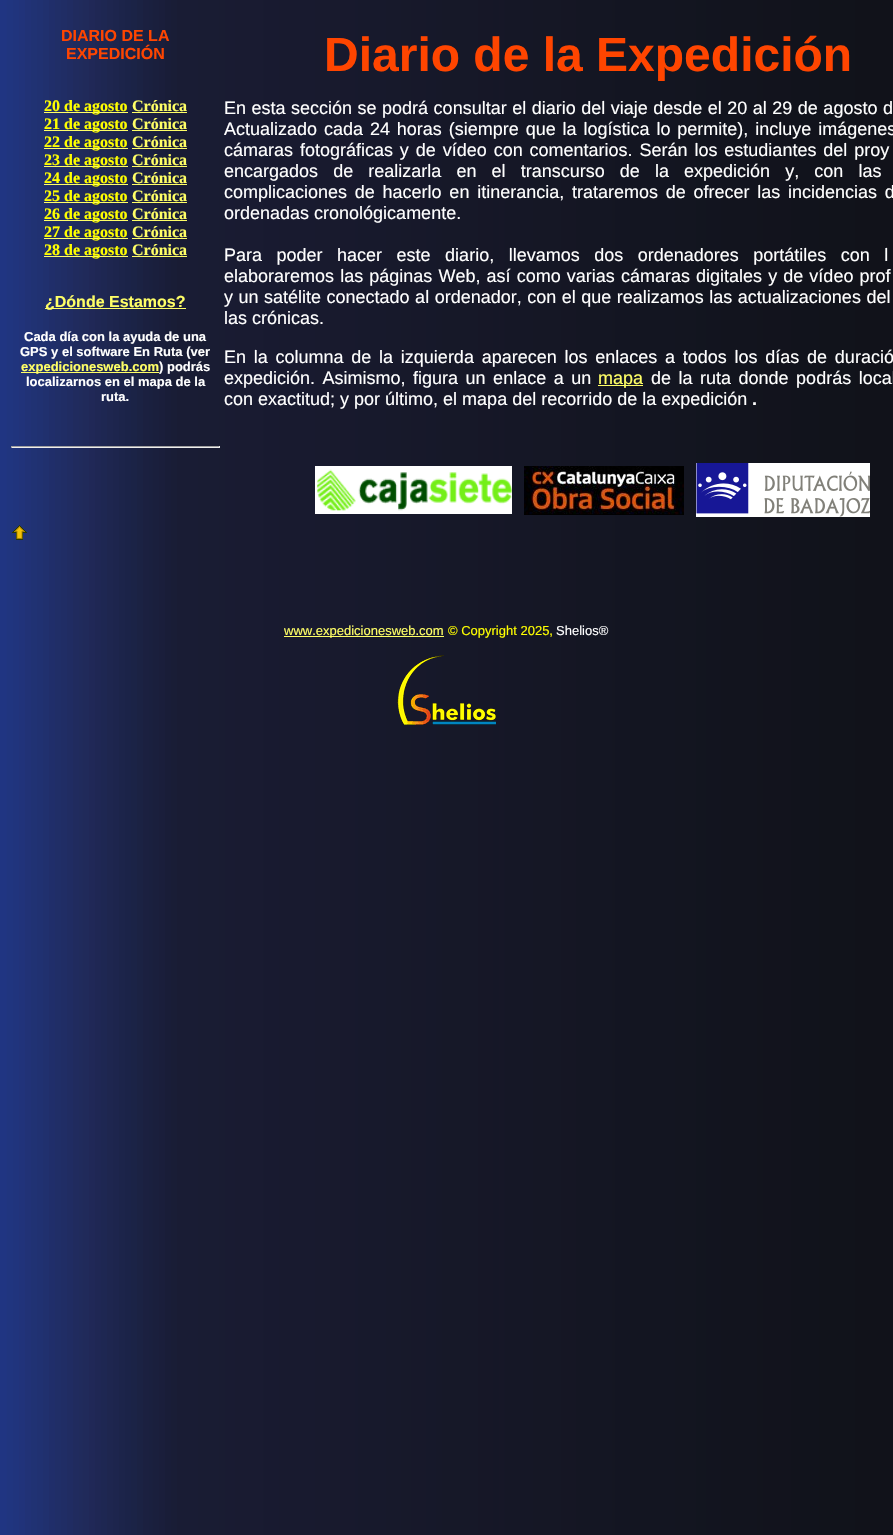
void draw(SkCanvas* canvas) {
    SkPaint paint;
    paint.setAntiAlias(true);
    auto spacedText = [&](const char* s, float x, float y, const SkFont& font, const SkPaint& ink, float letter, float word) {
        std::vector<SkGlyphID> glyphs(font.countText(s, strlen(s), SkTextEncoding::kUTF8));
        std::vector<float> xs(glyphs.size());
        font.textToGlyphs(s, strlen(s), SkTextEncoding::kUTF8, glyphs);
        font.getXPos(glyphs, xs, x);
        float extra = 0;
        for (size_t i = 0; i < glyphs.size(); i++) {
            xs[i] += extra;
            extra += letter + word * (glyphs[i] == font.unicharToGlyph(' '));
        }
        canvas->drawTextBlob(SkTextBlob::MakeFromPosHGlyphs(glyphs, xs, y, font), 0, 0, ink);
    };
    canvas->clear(0xFFFFFFFF);
    canvas->drawImageRect(SkImages::DeferredFromEncodedData(SkData::MakeFromFileName("img1.png")), SkRect::MakeXYWH(0, 0, 893, 1535), SkSamplingOptions());
    SkFont font1(fontMgr->matchFamilyStyle("Liberation Sans", SkFontStyle::Bold()), 16);
    font1.setSubpixel(true);
    paint.setColor(0xFFFF4500);
    canvas->drawString("DIARIO DE LA", 61, 41, font1, paint);
    canvas->drawString("EXPEDICIÓN", 66, 59, font1, paint);
    paint.setColor(0xFFFFFF66);
    canvas->drawRect(SkRect::MakeXYWH(44, 112, 84, 1), paint);
    SkFont font2(fontMgr->matchFamilyStyle("Liberation Serif", SkFontStyle::Bold()), 16);
    font2.setSubpixel(true);
    paint.setColor(0xFFFFFF00);
    canvas->drawString("20 de agosto", 44, 111, font2, paint);
    paint.setColor(0xFFFFFF66);
    canvas->drawString("Crónica", 132, 111, font2, paint);
    canvas->drawRect(SkRect::MakeXYWH(132, 112, 55, 1), paint);
    canvas->drawRect(SkRect::MakeXYWH(44, 130, 84, 1), paint);
    paint.setColor(0xFFFFFF00);
    canvas->drawString("21 de agosto", 44, 129, font2, paint);
    paint.setColor(0xFFFFFF66);
    canvas->drawString("Crónica", 132, 129, font2, paint);
    canvas->drawRect(SkRect::MakeXYWH(132, 130, 55, 1), paint);
    canvas->drawRect(SkRect::MakeXYWH(44, 148, 84, 1), paint);
    paint.setColor(0xFFFFFF00);
    canvas->drawString("22 de agosto", 44, 147, font2, paint);
    paint.setColor(0xFFFFFF66);
    canvas->drawString("Crónica", 132, 147, font2, paint);
    canvas->drawRect(SkRect::MakeXYWH(132, 148, 55, 1), paint);
    canvas->drawRect(SkRect::MakeXYWH(44, 166, 84, 1), paint);
    paint.setColor(0xFFFFFF00);
    canvas->drawString("23 de agosto", 44, 165, font2, paint);
    paint.setColor(0xFFFFFF66);
    canvas->drawString("Crónica", 132, 165, font2, paint);
    canvas->drawRect(SkRect::MakeXYWH(132, 166, 55, 1), paint);
    canvas->drawRect(SkRect::MakeXYWH(44, 184, 84, 1), paint);
    paint.setColor(0xFFFFFF00);
    canvas->drawString("24 de agosto", 44, 183, font2, paint);
    paint.setColor(0xFFFFFF66);
    canvas->drawString("Crónica", 132, 183, font2, paint);
    canvas->drawRect(SkRect::MakeXYWH(132, 184, 55, 1), paint);
    canvas->drawRect(SkRect::MakeXYWH(44, 202, 84, 1), paint);
    paint.setColor(0xFFFFFF00);
    canvas->drawString("25 de agosto", 44, 201, font2, paint);
    paint.setColor(0xFFFFFF66);
    canvas->drawString("Crónica", 132, 201, font2, paint);
    canvas->drawRect(SkRect::MakeXYWH(132, 202, 55, 1), paint);
    canvas->drawRect(SkRect::MakeXYWH(44, 220, 84, 1), paint);
    paint.setColor(0xFFFFFF00);
    canvas->drawString("26 de agosto", 44, 219, font2, paint);
    paint.setColor(0xFFFFFF66);
    canvas->drawString("Crónica", 132, 219, font2, paint);
    canvas->drawRect(SkRect::MakeXYWH(132, 220, 55, 1), paint);
    canvas->drawRect(SkRect::MakeXYWH(44, 238, 84, 1), paint);
    paint.setColor(0xFFFFFF00);
    canvas->drawString("27 de agosto", 44, 237, font2, paint);
    paint.setColor(0xFFFFFF66);
    canvas->drawString("Crónica", 132, 237, font2, paint);
    canvas->drawRect(SkRect::MakeXYWH(132, 238, 55, 1), paint);
    canvas->drawRect(SkRect::MakeXYWH(44, 256, 84, 1), paint);
    paint.setColor(0xFFFFFF00);
    canvas->drawString("28 de agosto", 44, 255, font2, paint);
    paint.setColor(0xFFFFFF66);
    canvas->drawString("Crónica", 132, 255, font2, paint);
    canvas->drawRect(SkRect::MakeXYWH(132, 256, 55, 1), paint);
    canvas->drawRect(SkRect::MakeXYWH(45, 308, 141, 1), paint);
    canvas->drawString("¿Dónde Estamos?", 45, 307, font1, paint);
    SkFont font3(fontMgr->matchFamilyStyle("Liberation Sans", SkFontStyle::Bold()), 13);
    font3.setSubpixel(true);
    paint.setColor(0xFFFFFFFF);
    canvas->drawString("Cada día con la ayuda de una", 24, 341, font3, paint);
    canvas->drawString("GPS y el software En Ruta (ver", 20, 356, font3, paint);
    paint.setColor(0xFFFFFF66);
    canvas->drawRect(SkRect::MakeXYWH(21, 372, 138, 1), paint);
    canvas->drawString("expedicionesweb.com", 21, 371, font3, paint);
    paint.setColor(0xFFFFFFFF);
    canvas->drawString(") podrás", 159, 371, font3, paint);
    canvas->drawString("localizarnos en el mapa de la", 26, 386, font3, paint);
    canvas->drawString("ruta.", 101, 401, font3, paint);
    paint.setColor(0xFF9F9F9F);
    canvas->drawRect(SkRect::MakeXYWH(11, 446, 209, 1), paint);
    paint.setColor(0xFFEEEEEE);
    canvas->drawRect(SkRect::MakeXYWH(219, 446, 1, 2), paint);
    canvas->drawRect(SkRect::MakeXYWH(11, 447, 209, 1), paint);
    paint.setColor(0xFF9F9F9F);
    canvas->drawRect(SkRect::MakeXYWH(11, 446, 1, 2), paint);
    canvas->drawImageRect(SkImages::DeferredFromEncodedData(SkData::MakeFromFileName("img2.png")), SkRect::MakeXYWH(12, 525, 15, 15), SkSamplingOptions());
    SkFont font4(fontMgr->matchFamilyStyle("Liberation Sans", SkFontStyle::Bold()), 48);
    font4.setSubpixel(true);
    paint.setColor(0xFFFF4500);
    canvas->drawString("Diario de la Expedición", 324, 71, font4, paint);
    SkFont font5(fontMgr->matchFamilyStyle("Liberation Sans", SkFontStyle::Normal()), 18);
    font5.setSubpixel(true);
    paint.setColor(0xFFFFFFFF);
    spacedText("En esta sección se podrá consultar el diario del viaje desde el 20 al 29 de agosto d", 224, 114, font5, paint, 0, 0.5f);
    spacedText("Actualizado cada 24 horas (siempre que la logística lo permite), incluye imágenes", 224, 135, font5, paint, 0, 1.9f);
    spacedText("cámaras fotográficas y de vídeo con comentarios. Serán los estudiantes del proy", 224, 156, font5, paint, 0, 1.9f);
    spacedText("encargados de realizarla en el transcurso de la expedición y, con las", 224, 177, font5, paint, 0, 10.1f);
    spacedText("complicaciones de hacerlo en itinerancia, trataremos de ofrecer las incidencias d", 224, 198, font5, paint, 0, 2.75f);
    canvas->drawString("ordenadas cronológicamente.", 224, 219, font5, paint);
    spacedText("Para poder hacer este diario, llevamos dos ordenadores portátiles con l", 224, 261, font5, paint, 0, 9.5f);
    spacedText("elaboraremos las páginas Web, así como varias cámaras digitales y de vídeo prof", 224, 282, font5, paint, 0, 1.1f);
    spacedText("y un satélite conectado al ordenador, con el que realizamos las actualizaciones del", 224, 303, font5, paint, 0, 0.5f);
    canvas->drawString("las crónicas.", 224, 324, font5, paint);
    spacedText("En la columna de la izquierda aparecen los enlaces a todos los días de duració", 224, 363, font5, paint, 0, 2.75f);
    spacedText("expedición. Asimismo, figura un enlace a un", 224, 384, font5, paint, 0, 2.5f);
    paint.setColor(0xFFFFFF66);
    canvas->drawRect(SkRect::MakeXYWH(598, 385, 45, 1), paint);
    canvas->drawString("mapa", 598, 384, font5, paint);
    paint.setColor(0xFFFFFFFF);
    spacedText("de la ruta donde podrás local", 651, 384, font5, paint, 0, 2.5f);
    canvas->drawString("con exactitud; y por último, el mapa del recorrido de la expedición", 224, 405, font5, paint);
    SkFont font6(fontMgr->matchFamilyStyle("Liberation Sans", SkFontStyle::Bold()), 18);
    font6.setSubpixel(true);
    canvas->drawString(".", 752, 405, font6, paint);
    canvas->drawImageRect(SkImages::DeferredFromEncodedData(SkData::MakeFromFileName("img3.png")), SkRect::MakeXYWH(315, 466, 197, 48), SkSamplingOptions());
    canvas->drawImageRect(SkImages::DeferredFromEncodedData(SkData::MakeFromFileName("img4.png")), SkRect::MakeXYWH(524, 466, 160, 49), SkSamplingOptions());
    canvas->drawImageRect(SkImages::DeferredFromEncodedData(SkData::MakeFromFileName("img5.png")), SkRect::MakeXYWH(696, 463, 174, 54), SkSamplingOptions());
    paint.setColor(0xFFFFFF66);
    canvas->drawRect(SkRect::MakeXYWH(284, 636, 160, 1), paint);
    SkFont font7(fontMgr->matchFamilyStyle("Liberation Sans", SkFontStyle::Normal()), 13);
    font7.setSubpixel(true);
    canvas->drawString("www.expedicionesweb.com", 284, 635, font7, paint);
    paint.setColor(0xFFFFFF00);
    canvas->drawString("© Copyright 2025,", 448, 635, font7, paint);
    paint.setColor(0xFFFFFFFF);
    canvas->drawString("Shelios®", 556, 635, font7, paint);
    canvas->drawImageRect(SkImages::DeferredFromEncodedData(SkData::MakeFromFileName("img6.png")), SkRect::MakeXYWH(397, 655, 99, 70), SkSamplingOptions());
}
